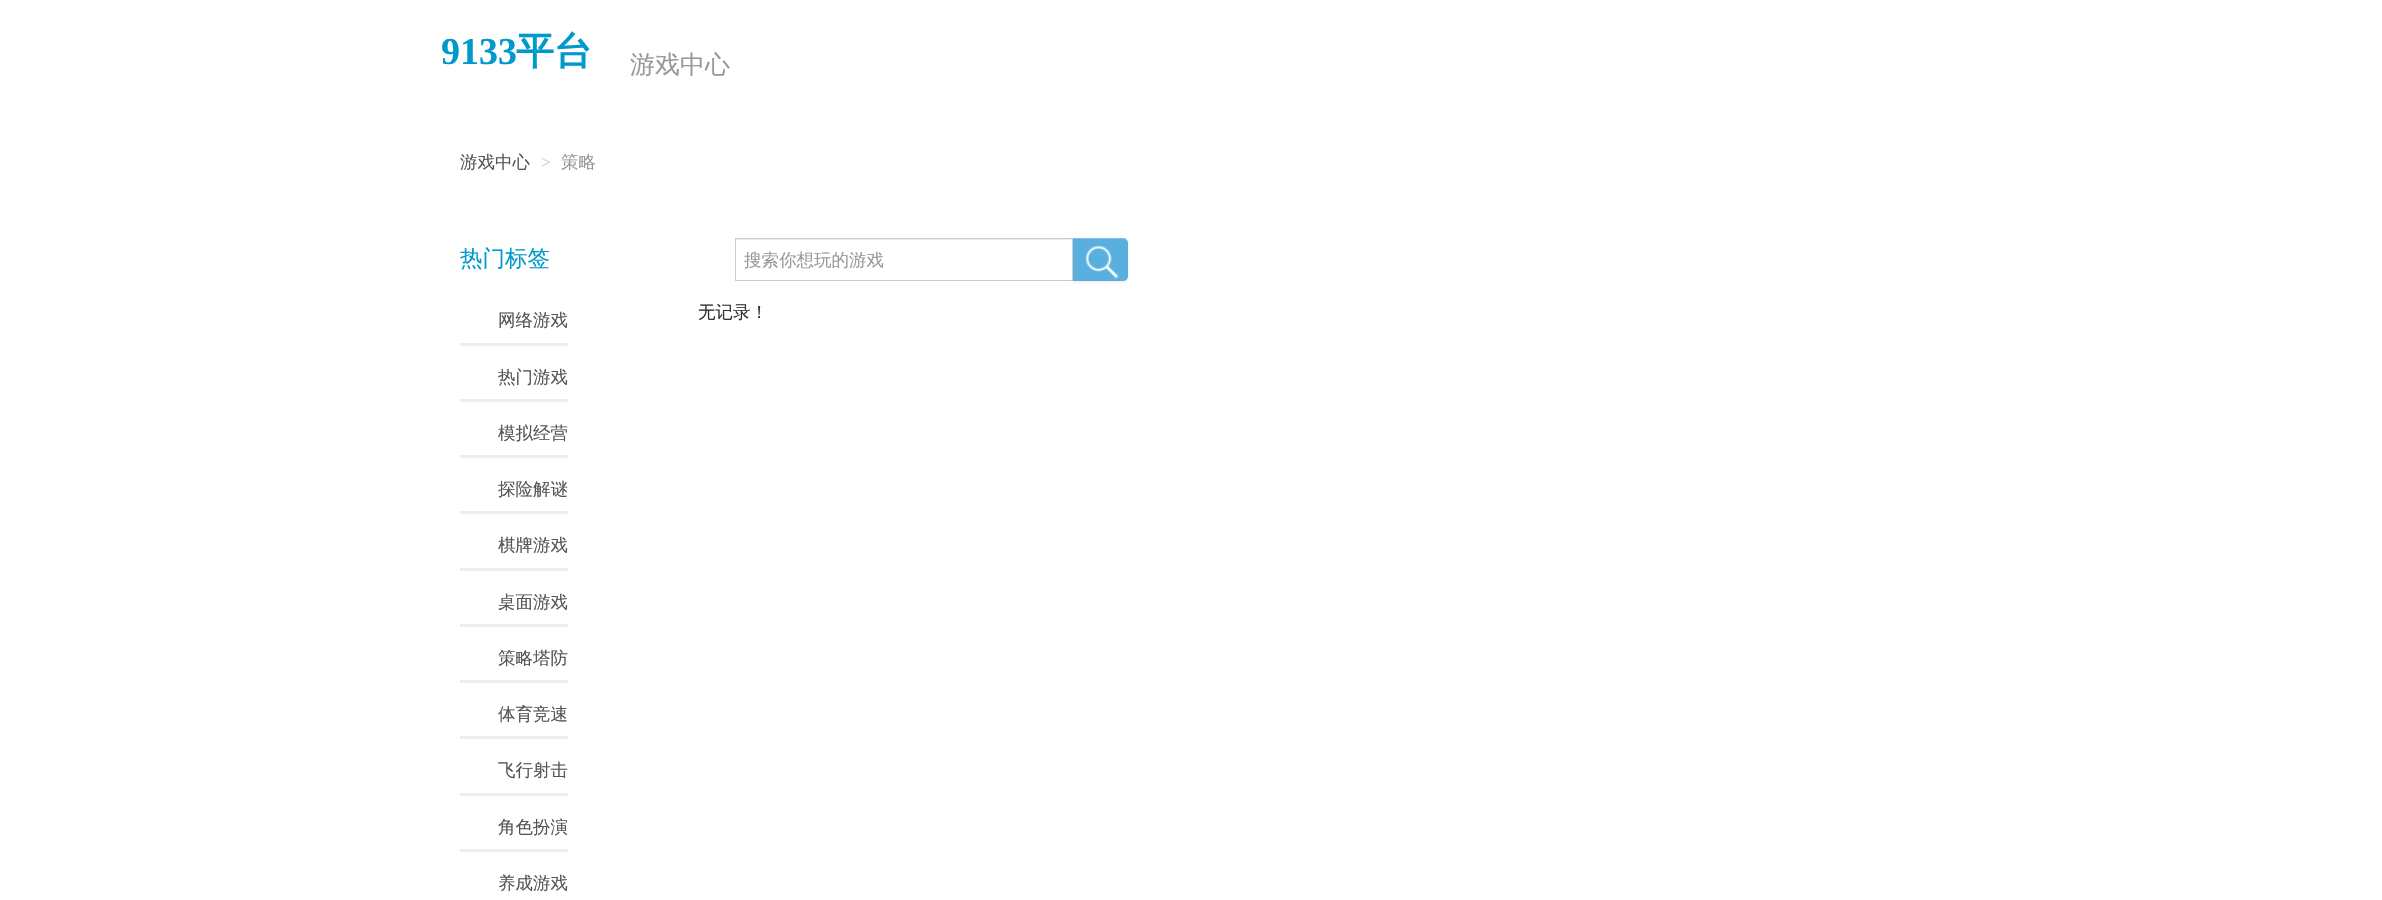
void draw(SkCanvas* canvas) {
    SkPaint paint;
    paint.setAntiAlias(true);
    canvas->clear(0xFFFFFFFF);
    SkFont font1(fontMgr->matchFamilyStyle("Liberation Serif", SkFontStyle::Bold()), 38);
    font1.setSubpixel(true);
    paint.setColor(0xFF0099CC);
    canvas->drawString("9133", 441, 64, font1, paint);
    SkFont font2(fontMgr->matchFamilyStyle("WenQuanYi Zen Hei", SkFontStyle::Bold()), 38);
    font2.setSubpixel(true);
    canvas->drawString("平台", 516, 64, font2, paint);
    SkFont font3(fontMgr->matchFamilyStyle("WenQuanYi Zen Hei", SkFontStyle(500, SkFontStyle::kNormal_Width, SkFontStyle::kUpright_Slant)), 25);
    font3.setSubpixel(true);
    paint.setColor(0xFF999999);
    canvas->drawString("游戏中心", 630, 73, font3, paint);
    SkFont font4(fontMgr->matchFamilyStyle("WenQuanYi Zen Hei", SkFontStyle(500, SkFontStyle::kNormal_Width, SkFontStyle::kUpright_Slant)), 17.5f);
    font4.setSubpixel(true);
    paint.setColor(0xFF555555);
    canvas->drawString("游戏中心", 460, 168, font4, paint);
    SkFont font5(fontMgr->matchFamilyStyle("Liberation Serif", SkFontStyle::Normal()), 17.5f);
    font5.setSubpixel(true);
    paint.setColor(0xFFCCCCCC);
    canvas->drawString(">", 541, 168, font5, paint);
    paint.setColor(0xFF999999);
    canvas->drawString("策略", 561, 168, font4, paint);
    SkFont font6(fontMgr->matchFamilyStyle("WenQuanYi Zen Hei", SkFontStyle(500, SkFontStyle::kNormal_Width, SkFontStyle::kUpright_Slant)), 22.5f);
    font6.setSubpixel(true);
    paint.setColor(0xFF0099CC);
    canvas->drawString("热门标签", 460, 266, font6, paint);
    paint.setColor(0xFFEEEEEE);
    canvas->drawRect(SkRect::MakeXYWH(460, 343, 108, 3), paint);
    paint.setColor(0xFF555555);
    canvas->drawString("网络游戏", 498, 326, font4, paint);
    paint.setColor(0xFFEEEEEE);
    canvas->drawRect(SkRect::MakeXYWH(460, 399, 108, 3), paint);
    paint.setColor(0xFF555555);
    canvas->drawString("热门游戏", 498, 383, font4, paint);
    paint.setColor(0xFFEEEEEE);
    canvas->drawRect(SkRect::MakeXYWH(460, 455, 108, 3), paint);
    paint.setColor(0xFF555555);
    canvas->drawString("模拟经营", 498, 439, font4, paint);
    paint.setColor(0xFFEEEEEE);
    canvas->drawRect(SkRect::MakeXYWH(460, 511, 108, 3), paint);
    paint.setColor(0xFF555555);
    canvas->drawString("探险解谜", 498, 495, font4, paint);
    paint.setColor(0xFFEEEEEE);
    canvas->drawRect(SkRect::MakeXYWH(460, 568, 108, 3), paint);
    paint.setColor(0xFF555555);
    canvas->drawString("棋牌游戏", 498, 551, font4, paint);
    paint.setColor(0xFFEEEEEE);
    canvas->drawRect(SkRect::MakeXYWH(460, 624, 108, 3), paint);
    paint.setColor(0xFF555555);
    canvas->drawString("桌面游戏", 498, 608, font4, paint);
    paint.setColor(0xFFEEEEEE);
    canvas->drawRect(SkRect::MakeXYWH(460, 680, 108, 3), paint);
    paint.setColor(0xFF555555);
    canvas->drawString("策略塔防", 498, 664, font4, paint);
    paint.setColor(0xFFEEEEEE);
    canvas->drawRect(SkRect::MakeXYWH(460, 736, 108, 3), paint);
    paint.setColor(0xFF555555);
    canvas->drawString("体育竞速", 498, 720, font4, paint);
    paint.setColor(0xFFEEEEEE);
    canvas->drawRect(SkRect::MakeXYWH(460, 793, 108, 3), paint);
    paint.setColor(0xFF555555);
    canvas->drawString("飞行射击", 498, 776, font4, paint);
    paint.setColor(0xFFEEEEEE);
    canvas->drawRect(SkRect::MakeXYWH(460, 849, 108, 3), paint);
    paint.setColor(0xFF555555);
    canvas->drawString("角色扮演", 498, 833, font4, paint);
    canvas->drawString("养成游戏", 498, 889, font4, paint);
    paint.setColor(0x0D000000);
    paint.setMaskFilter(SkMaskFilter::MakeBlur(kNormal_SkBlurStyle, 1));
    canvas->drawRoundRect(SkRect::MakeXYWH(1071, 239, 57, 44), 5, 5, paint);
    paint.setMaskFilter(nullptr);
    paint.setColor(0xFF59B0DE);
    canvas->drawPath(SkPathBuilder().moveTo(1071, 238).lineTo(1123, 238).cubicTo(1126, 238, 1128, 240, 1128, 243).lineTo(1128, 276).cubicTo(1128, 279, 1126, 281, 1123, 281).lineTo(1071, 281).close().detach(), paint);
    paint.setColor(0x33FFFFFF);
    canvas->drawPath(SkPathBuilder().moveTo(1071, 239).lineTo(1122, 239).cubicTo(1125, 239, 1128, 241, 1128, 244).lineTo(1128, 243).cubicTo(1128, 240, 1126, 238, 1123, 238).lineTo(1071, 238).close().detach(), paint);
    paint.setColor(0xFFFFFFFF);
    canvas->drawRect(SkRect::MakeXYWH(1070, 239, 2, 41), paint);
    paint.setColor(0xFFECECEC);
    canvas->drawRect(SkRect::MakeXYWH(736, 239, 335, 1), paint);
    paint.setStyle(SkPaint::kStroke_Style);
    paint.setStrokeWidth(1);
    paint.setColor(0xFFCCCCCC);
    canvas->drawRect(SkRect::MakeXYWH(735.5f, 238.5f, 337, 42), paint);
    paint.setStyle(SkPaint::kFill_Style);
    paint.setColor(0xFF999999);
    canvas->drawString("搜索你想玩的游戏", 744, 266, font4, paint);
    canvas->drawImageRect(SkImages::DeferredFromEncodedData(SkData::MakeFromFileName("img1.png")), SkRect::MakeXYWH(1086, 246, 33, 33), SkSamplingOptions());
    paint.setColor(0xFF333333);
    canvas->drawString("无记录！", 698, 318, font4, paint);
}
